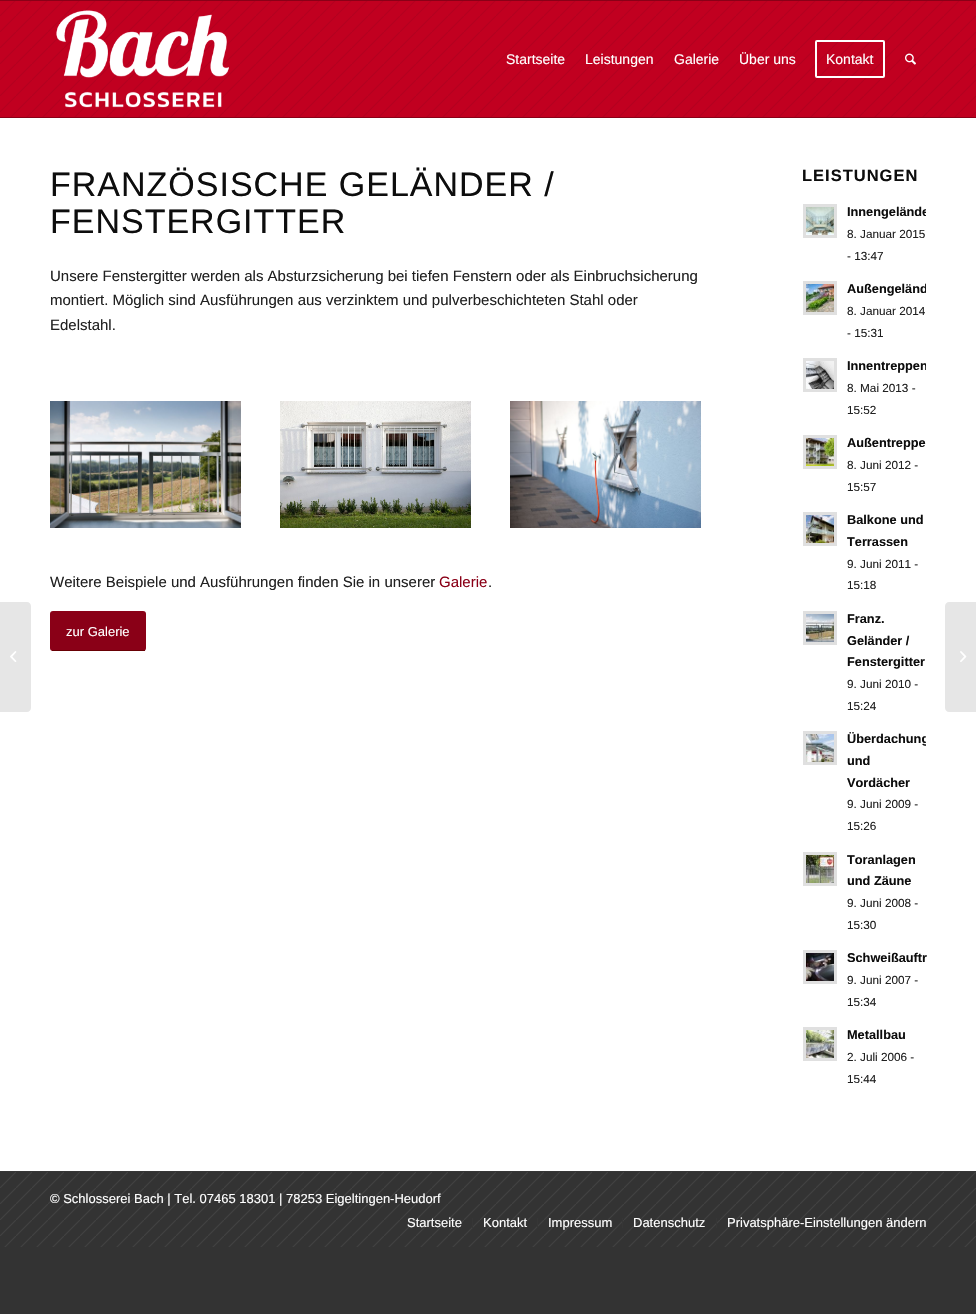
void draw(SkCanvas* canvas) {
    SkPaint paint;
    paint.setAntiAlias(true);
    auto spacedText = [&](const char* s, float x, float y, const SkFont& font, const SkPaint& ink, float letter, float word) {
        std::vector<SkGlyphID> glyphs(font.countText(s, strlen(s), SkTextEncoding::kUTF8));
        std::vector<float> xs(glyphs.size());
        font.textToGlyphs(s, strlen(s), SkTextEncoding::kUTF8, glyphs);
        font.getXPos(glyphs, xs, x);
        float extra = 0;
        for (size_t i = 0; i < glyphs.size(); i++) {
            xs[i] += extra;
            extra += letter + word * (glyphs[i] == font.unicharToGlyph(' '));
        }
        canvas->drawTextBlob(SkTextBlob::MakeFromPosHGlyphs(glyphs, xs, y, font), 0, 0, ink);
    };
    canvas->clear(0xFF333333);
    paint.setColor(0xFFC10020);
    canvas->drawRect(SkRect::MakeXYWH(0, 1, 976, 116), paint);
    canvas->drawImageRect(SkImages::DeferredFromEncodedData(SkData::MakeFromFileName("img1.png")), SkRect::MakeXYWH(0, 1, 976, 116), SkSamplingOptions());
    paint.setColor(0xFF8A0017);
    canvas->drawRect(SkRect::MakeXYWH(0, 0, 976, 1), paint);
    canvas->drawRect(SkRect::MakeXYWH(0, 117, 976, 1), paint);
    canvas->drawImageRect(SkImages::DeferredFromEncodedData(SkData::MakeFromFileName("img2.png")), SkRect::MakeXYWH(56, 10, 173, 98), SkSamplingOptions());
    SkFont font1(fontMgr->matchFamilyStyle("Liberation Sans", SkFontStyle::Normal()), 14);
    font1.setSubpixel(true);
    paint.setColor(0xFFFFFFFF);
    canvas->drawString("Startseite", 506, 64, font1, paint);
    canvas->drawString("Leistungen", 585, 64, font1, paint);
    canvas->drawString("Galerie", 674, 64, font1, paint);
    canvas->drawString("Über uns", 739, 64, font1, paint);
    paint.setStyle(SkPaint::kStroke_Style);
    paint.setStrokeWidth(2);
    canvas->drawRoundRect(SkRect::MakeXYWH(816, 41, 68, 36), 1, 1, paint);
    paint.setStyle(SkPaint::kFill_Style);
    canvas->drawString("Kontakt", 826, 64, font1, paint);
    canvas->drawImageRect(SkImages::DeferredFromEncodedData(SkData::MakeFromFileName("img3.png")), SkRect::MakeXYWH(905, 53, 11, 12), SkSamplingOptions());
    canvas->drawRect(SkRect::MakeXYWH(0, 118, 976, 1053), paint);
    paint.setColor(0xFFE6E6E6);
    canvas->drawPath(SkPathBuilder().moveTo(0, 602).lineTo(27, 602).cubicTo(29, 602, 31, 604, 31, 606).lineTo(31, 708).cubicTo(31, 710, 29, 712, 27, 712).lineTo(0, 712).close().detach(), paint);
    canvas->drawImageRect(SkImages::DeferredFromEncodedData(SkData::MakeFromFileName("img4.png")), SkRect::MakeXYWH(10, 651, 7, 11), SkSamplingOptions());
    SkFont font2(fontMgr->matchFamilyStyle("Liberation Sans", SkFontStyle::Normal()), 34);
    font2.setSubpixel(true);
    paint.setColor(0xFF0D0D0D);
    spacedText("FRANZÖSISCHE GELÄNDER /", 50, 196, font2, paint, 1, 0);
    spacedText("FENSTERGITTER", 50, 233, font2, paint, 1, 0);
    SkFont font3(fontMgr->matchFamilyStyle("Liberation Sans", SkFontStyle::Normal()), 15);
    font3.setSubpixel(true);
    paint.setColor(0xFF212121);
    canvas->drawString("Unsere Fenstergitter werden als Absturzsicherung bei tiefen Fenstern oder als Einbruchsicherung", 50, 281, font3, paint);
    canvas->drawString("montiert. Möglich sind Ausführungen aus verzinktem und pulverbeschichteten Stahl oder", 50, 305, font3, paint);
    canvas->drawString("Edelstahl.", 50, 330, font3, paint);
    canvas->drawImageRect(SkImages::DeferredFromEncodedData(SkData::MakeFromFileName("img5.png")), SkRect::MakeXYWH(50, 401, 191, 127), SkSamplingOptions());
    canvas->drawImageRect(SkImages::DeferredFromEncodedData(SkData::MakeFromFileName("img6.png")), SkRect::MakeXYWH(280, 401, 191, 127), SkSamplingOptions());
    canvas->drawImageRect(SkImages::DeferredFromEncodedData(SkData::MakeFromFileName("img7.png")), SkRect::MakeXYWH(510, 401, 191, 127), SkSamplingOptions());
    canvas->drawString("Weitere Beispiele und Ausführungen finden Sie in unserer", 50, 587, font3, paint);
    paint.setColor(0xFF8A0017);
    canvas->drawString("Galerie", 439, 587, font3, paint);
    paint.setColor(0xFF212121);
    canvas->drawString(".", 488, 587, font3, paint);
    paint.setColor(0xFF8A0017);
    canvas->drawRoundRect(SkRect::MakeXYWH(50, 611, 96, 40), 3, 3, paint);
    paint.setColor(0xFF680005);
    canvas->drawRect(SkRect::MakeXYWH(52, 650, 93, 1), paint);
    SkFont font4(fontMgr->matchFamilyStyle("Liberation Sans", SkFontStyle::Normal()), 13);
    font4.setSubpixel(true);
    paint.setColor(0xFFFFFFFF);
    canvas->drawString("zur Galerie", 66, 636, font4, paint);
    SkFont font5(fontMgr->matchFamilyStyle("Liberation Sans", SkFontStyle::Bold()), 16.5f);
    font5.setSubpixel(true);
    paint.setColor(0xFF0D0D0D);
    spacedText("LEISTUNGEN", 802, 181, font5, paint, 1, 0);
    paint.setColor(0xFFE0E0E0);
    canvas->drawRect(SkRect::MakeXYWH(803, 204, 34, 34), paint);
    canvas->drawImageRect(SkImages::DeferredFromEncodedData(SkData::MakeFromFileName("img8.png")), SkRect::MakeXYWH(806, 207, 28, 28), SkSamplingOptions());
    canvas->save();
    canvas->clipRect(SkRect::MakeXYWH(847, 201, 79, 65));
    SkFont font6(fontMgr->matchFamilyStyle("Liberation Sans", SkFontStyle::Bold()), 12.75f);
    font6.setSubpixel(true);
    paint.setColor(0xFF0D0D0D);
    canvas->drawString("Innengelände", 847, 216, font6, paint);
    canvas->restore();
    SkFont font7(fontMgr->matchFamilyStyle("Liberation Sans", SkFontStyle::Normal()), 11.75f);
    font7.setSubpixel(true);
    paint.setColor(0xFF212121);
    canvas->drawString("8. Januar 2015", 847, 238, font7, paint);
    canvas->drawString("- 13:47", 847, 260, font7, paint);
    paint.setColor(0xFFE0E0E0);
    canvas->drawRect(SkRect::MakeXYWH(803, 281, 34, 34), paint);
    canvas->drawImageRect(SkImages::DeferredFromEncodedData(SkData::MakeFromFileName("img9.png")), SkRect::MakeXYWH(806, 284, 28, 28), SkSamplingOptions());
    canvas->save();
    canvas->clipRect(SkRect::MakeXYWH(847, 278, 79, 65));
    paint.setColor(0xFF0D0D0D);
    canvas->drawString("Außengeländ", 847, 293, font6, paint);
    canvas->restore();
    paint.setColor(0xFF212121);
    canvas->drawString("8. Januar 2014", 847, 315, font7, paint);
    canvas->drawString("- 15:31", 847, 337, font7, paint);
    paint.setColor(0xFFE0E0E0);
    canvas->drawRect(SkRect::MakeXYWH(803, 358, 34, 34), paint);
    canvas->drawImageRect(SkImages::DeferredFromEncodedData(SkData::MakeFromFileName("img10.png")), SkRect::MakeXYWH(806, 361, 28, 28), SkSamplingOptions());
    canvas->save();
    canvas->clipRect(SkRect::MakeXYWH(847, 355, 79, 65));
    paint.setColor(0xFF0D0D0D);
    canvas->drawString("Innentreppen", 847, 370, font6, paint);
    canvas->restore();
    paint.setColor(0xFF212121);
    canvas->drawString("8. Mai 2013 -", 847, 392, font7, paint);
    canvas->drawString("15:52", 847, 414, font7, paint);
    paint.setColor(0xFFE0E0E0);
    canvas->drawRect(SkRect::MakeXYWH(803, 435, 34, 34), paint);
    canvas->drawImageRect(SkImages::DeferredFromEncodedData(SkData::MakeFromFileName("img11.png")), SkRect::MakeXYWH(806, 438, 28, 28), SkSamplingOptions());
    paint.setColor(0xFF0D0D0D);
    canvas->drawString("Außentreppe", 847, 447, font6, paint);
    paint.setColor(0xFF212121);
    canvas->drawString("8. Juni 2012 -", 847, 469, font7, paint);
    canvas->drawString("15:57", 847, 491, font7, paint);
    paint.setColor(0xFFE0E0E0);
    canvas->drawRect(SkRect::MakeXYWH(803, 512, 34, 34), paint);
    canvas->drawImageRect(SkImages::DeferredFromEncodedData(SkData::MakeFromFileName("img12.png")), SkRect::MakeXYWH(806, 515, 28, 28), SkSamplingOptions());
    paint.setColor(0xFF0D0D0D);
    canvas->drawString("Balkone und", 847, 524, font6, paint);
    canvas->drawString("Terrassen", 847, 546, font6, paint);
    paint.setColor(0xFF212121);
    canvas->drawString("9. Juni 2011 -", 847, 568, font7, paint);
    canvas->drawString("15:18", 847, 589, font7, paint);
    paint.setColor(0xFFE0E0E0);
    canvas->drawRect(SkRect::MakeXYWH(803, 611, 34, 34), paint);
    canvas->drawImageRect(SkImages::DeferredFromEncodedData(SkData::MakeFromFileName("img13.png")), SkRect::MakeXYWH(806, 614, 28, 28), SkSamplingOptions());
    paint.setColor(0xFF0D0D0D);
    canvas->drawString("Franz.", 847, 623, font6, paint);
    canvas->drawString("Geländer /", 847, 645, font6, paint);
    canvas->drawString("Fenstergitter", 847, 666, font6, paint);
    paint.setColor(0xFF212121);
    canvas->drawString("9. Juni 2010 -", 847, 688, font7, paint);
    canvas->drawString("15:24", 847, 710, font7, paint);
    paint.setColor(0xFFE0E0E0);
    canvas->drawRect(SkRect::MakeXYWH(803, 731, 34, 34), paint);
    canvas->drawImageRect(SkImages::DeferredFromEncodedData(SkData::MakeFromFileName("img14.png")), SkRect::MakeXYWH(806, 734, 28, 28), SkSamplingOptions());
    canvas->save();
    canvas->clipRect(SkRect::MakeXYWH(847, 728, 79, 109));
    paint.setColor(0xFF0D0D0D);
    canvas->drawString("Überdachung", 847, 743, font6, paint);
    canvas->restore();
    canvas->drawString("und", 847, 765, font6, paint);
    canvas->drawString("Vordächer", 847, 787, font6, paint);
    paint.setColor(0xFF212121);
    canvas->drawString("9. Juni 2009 -", 847, 808, font7, paint);
    canvas->drawString("15:26", 847, 830, font7, paint);
    paint.setColor(0xFFE0E0E0);
    canvas->drawRect(SkRect::MakeXYWH(803, 852, 34, 34), paint);
    canvas->drawImageRect(SkImages::DeferredFromEncodedData(SkData::MakeFromFileName("img15.png")), SkRect::MakeXYWH(806, 855, 28, 28), SkSamplingOptions());
    paint.setColor(0xFF0D0D0D);
    canvas->drawString("Toranlagen", 847, 864, font6, paint);
    canvas->drawString("und Zäune", 847, 885, font6, paint);
    paint.setColor(0xFF212121);
    canvas->drawString("9. Juni 2008 -", 847, 907, font7, paint);
    canvas->drawString("15:30", 847, 929, font7, paint);
    paint.setColor(0xFFE0E0E0);
    canvas->drawRect(SkRect::MakeXYWH(803, 950, 34, 34), paint);
    canvas->drawImageRect(SkImages::DeferredFromEncodedData(SkData::MakeFromFileName("img16.png")), SkRect::MakeXYWH(806, 953, 28, 28), SkSamplingOptions());
    paint.setColor(0xFF0D0D0D);
    canvas->drawString("Schweißauftr", 847, 962, font6, paint);
    paint.setColor(0xFF212121);
    canvas->drawString("9. Juni 2007 -", 847, 984, font7, paint);
    canvas->drawString("15:34", 847, 1006, font7, paint);
    paint.setColor(0xFFE0E0E0);
    canvas->drawRect(SkRect::MakeXYWH(803, 1027, 34, 34), paint);
    canvas->drawImageRect(SkImages::DeferredFromEncodedData(SkData::MakeFromFileName("img17.png")), SkRect::MakeXYWH(806, 1030, 28, 28), SkSamplingOptions());
    paint.setColor(0xFF0D0D0D);
    canvas->drawString("Metallbau", 847, 1039, font6, paint);
    paint.setColor(0xFF212121);
    canvas->drawString("2. Juli 2006 -", 847, 1061, font7, paint);
    canvas->drawString("15:44", 847, 1083, font7, paint);
    canvas->drawImageRect(SkImages::DeferredFromEncodedData(SkData::MakeFromFileName("img18.png")), SkRect::MakeXYWH(0, 1172, 976, 75), SkSamplingOptions());
    paint.setColor(0xFF363636);
    canvas->drawRect(SkRect::MakeXYWH(0, 1171, 976, 1), paint);
    paint.setColor(0xFFFFFFFF);
    canvas->drawString("© Schlosserei Bach | Tel. 07465 18301 | 78253 Eigeltingen-Heudorf", 50, 1203, font4, paint);
    canvas->drawString("Startseite", 407, 1227, font4, paint);
    paint.setColor(0xFF363636);
    canvas->drawRect(SkRect::MakeXYWH(472, 1218, 1, 10), paint);
    paint.setColor(0xFFFFFFFF);
    canvas->drawString("Kontakt", 483, 1227, font4, paint);
    paint.setColor(0xFF363636);
    canvas->drawRect(SkRect::MakeXYWH(537, 1218, 1, 10), paint);
    paint.setColor(0xFFFFFFFF);
    canvas->drawString("Impressum", 548, 1227, font4, paint);
    paint.setColor(0xFF363636);
    canvas->drawRect(SkRect::MakeXYWH(622, 1218, 1, 10), paint);
    paint.setColor(0xFFFFFFFF);
    canvas->drawString("Datenschutz", 633, 1227, font4, paint);
    paint.setColor(0xFF363636);
    canvas->drawRect(SkRect::MakeXYWH(716, 1218, 1, 10), paint);
    paint.setColor(0xFFFFFFFF);
    canvas->drawString("Privatsphäre-Einstellungen ändern", 727, 1227, font4, paint);
    paint.setColor(0xFFE6E6E6);
    canvas->drawPath(SkPathBuilder().moveTo(949, 602).lineTo(976, 602).lineTo(976, 712).lineTo(949, 712).cubicTo(947, 712, 945, 710, 945, 708).lineTo(945, 606).cubicTo(945, 604, 947, 602, 949, 602).close().detach(), paint);
    canvas->drawImageRect(SkImages::DeferredFromEncodedData(SkData::MakeFromFileName("img19.png")), SkRect::MakeXYWH(960, 651, 7, 11), SkSamplingOptions());
}
